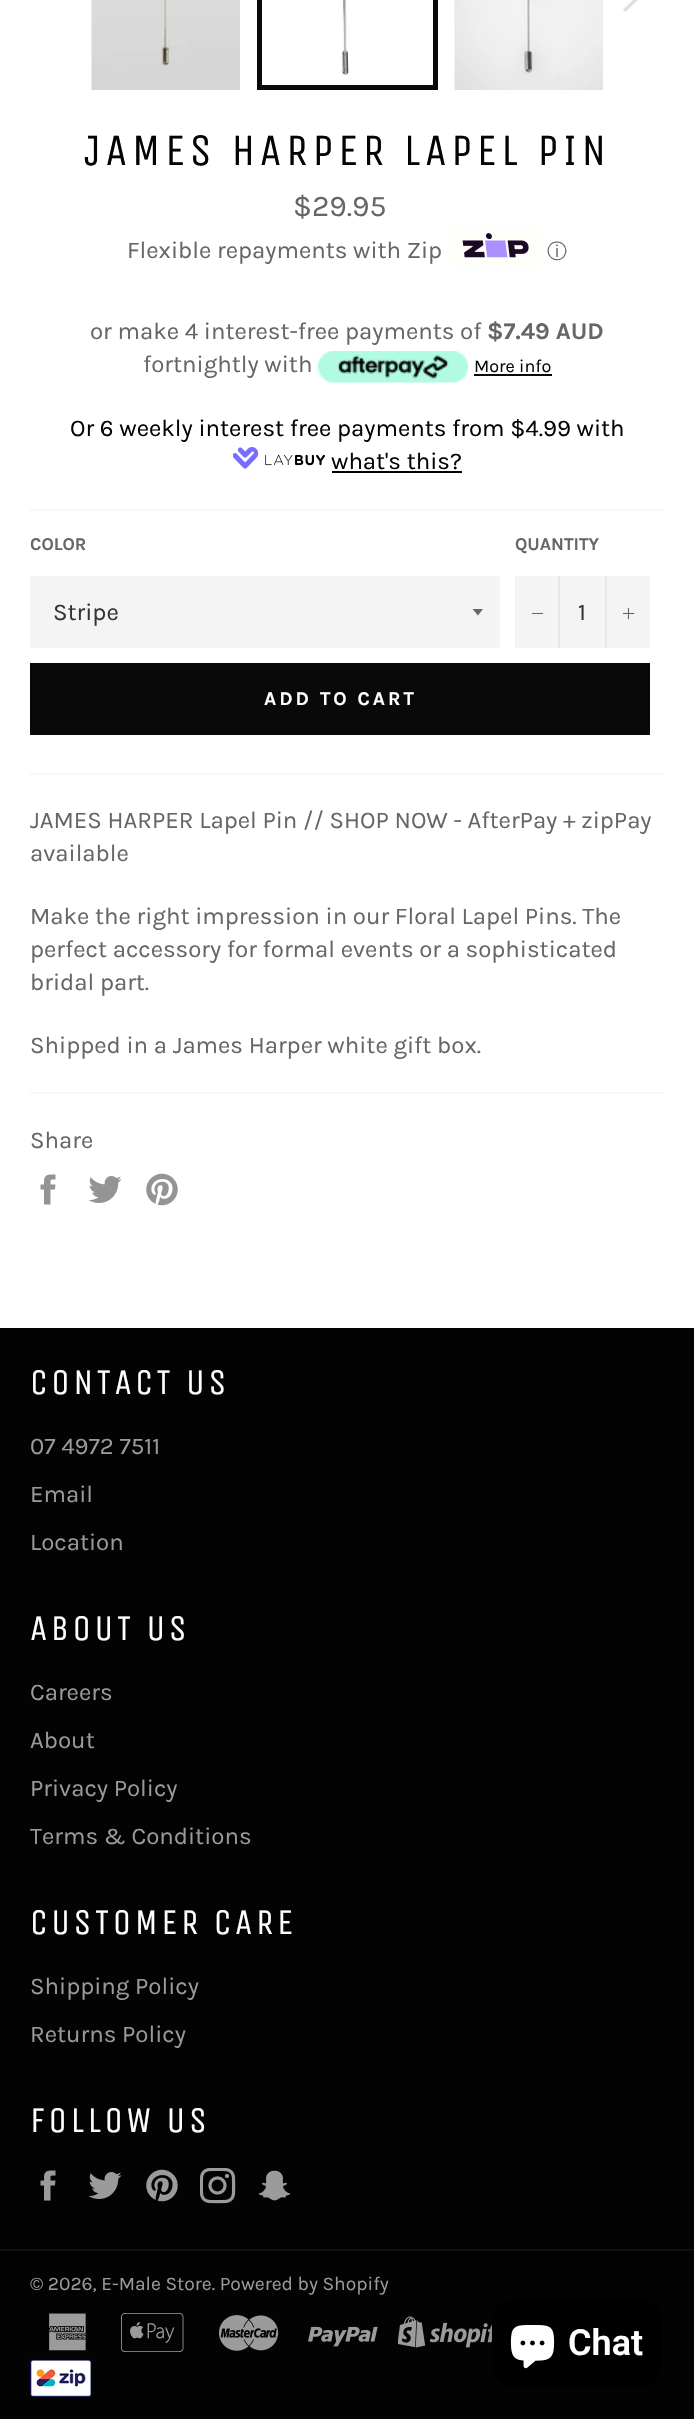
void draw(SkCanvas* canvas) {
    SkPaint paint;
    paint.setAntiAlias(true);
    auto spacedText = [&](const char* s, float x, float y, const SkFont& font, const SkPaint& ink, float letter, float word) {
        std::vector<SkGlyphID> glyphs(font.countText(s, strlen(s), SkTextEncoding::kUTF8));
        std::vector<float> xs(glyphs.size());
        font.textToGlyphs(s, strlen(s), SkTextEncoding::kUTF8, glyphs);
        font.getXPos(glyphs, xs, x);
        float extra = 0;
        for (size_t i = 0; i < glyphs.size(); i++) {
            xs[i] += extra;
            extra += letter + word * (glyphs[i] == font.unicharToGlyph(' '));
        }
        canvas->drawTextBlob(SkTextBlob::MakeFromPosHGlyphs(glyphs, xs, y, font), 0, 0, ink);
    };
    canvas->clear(0xFFFFFFFF);
    canvas->drawImageRect(SkImages::DeferredFromEncodedData(SkData::MakeFromFileName("img1.png")), SkRect::MakeXYWH(91, 0, 149, 90), SkSamplingOptions());
    canvas->drawImageRect(SkImages::DeferredFromEncodedData(SkData::MakeFromFileName("img2.png")), SkRect::MakeXYWH(341, 0, 9, 76), SkSamplingOptions());
    paint.setStyle(SkPaint::kStroke_Style);
    paint.setStrokeWidth(5);
    paint.setColor(0xFF090909);
    canvas->drawRect(SkRect::MakeXYWH(259.5f, -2.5f, 176, 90), paint);
    canvas->drawImageRect(SkImages::DeferredFromEncodedData(SkData::MakeFromFileName("img3.png")), SkRect::MakeXYWH(454, 0, 149, 90), SkSamplingOptions());
    paint.setStyle(SkPaint::kFill_Style);
    paint.setColor(0xFFE0E0E0);
    canvas->drawPath(SkPathBuilder().moveTo(623, -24.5f).lineTo(625.5f, -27).lineTo(646, -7.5f).lineTo(625.5f, 12).lineTo(623, 9.5f).lineTo(641, -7.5f).close().detach(), paint);
    SkFont font1(fontMgr->matchFamilyStyle("Unica One", SkFontStyle::Normal()), 45);
    font1.setSubpixel(true);
    paint.setColor(0xFF030303);
    spacedText("JAMES HARPER LAPEL PIN", 84, 165, font1, paint, 4.5f, 0);
    SkFont font2(fontMgr->matchFamilyStyle("Karla", SkFontStyle::Normal()), 30);
    font2.setSubpixel(true);
    paint.setColor(0xFF666666);
    canvas->drawString("$29.95", 293, 216, font2, paint);
    SkFont font3(fontMgr->matchFamilyStyle("Karla", SkFontStyle::Normal()), 24);
    font3.setSubpixel(true);
    canvas->drawString("Flexible repayments with Zip", 127, 258, font3, paint);
    canvas->drawImageRect(SkImages::DeferredFromEncodedData(SkData::MakeFromFileName("img4.png")), SkRect::MakeXYWH(450, 227, 90, 40), SkSamplingOptions());
    SkFont font4(fontMgr->matchFamilyStyle("WenQuanYi Zen Hei", SkFontStyle(500, SkFontStyle::kNormal_Width, SkFontStyle::kUpright_Slant)), 20);
    font4.setSubpixel(true);
    canvas->drawString("ⓘ", 547, 258, font4, paint);
    canvas->drawString("or make 4 interest-free payments of", 90, 339, font3, paint);
    SkFont font5(fontMgr->matchFamilyStyle("Karla", SkFontStyle::Bold()), 24);
    font5.setSubpixel(true);
    canvas->drawString("$7.49 AUD", 487, 339, font5, paint);
    canvas->drawString("fortnightly with", 143, 372, font3, paint);
    canvas->drawImageRect(SkImages::DeferredFromEncodedData(SkData::MakeFromFileName("img5.png")), SkRect::MakeXYWH(318, 351, 150, 32), SkSamplingOptions());
    SkFont font6(fontMgr->matchFamilyStyle("Karla", SkFontStyle::Normal()), 18);
    font6.setSubpixel(true);
    paint.setColor(0xFF090909);
    canvas->drawString("More info", 474, 372, font6, paint);
    canvas->drawRect(SkRect::MakeXYWH(474, 374, 78, 2), paint);
    paint.setColor(0xFF030303);
    canvas->drawString("Or 6 weekly interest free payments from $4.99 with", 70, 436, font3, paint);
    canvas->drawImageRect(SkImages::DeferredFromEncodedData(SkData::MakeFromFileName("img6.png")), SkRect::MakeXYWH(233, 447, 92, 22), SkSamplingOptions());
    canvas->drawString("what's this?", 331, 469, font3, paint);
    paint.setColor(0xFF000000);
    canvas->drawRect(SkRect::MakeXYWH(332, 471, 130, 2), paint);
    paint.setColor(0xFFF7F7F7);
    canvas->drawRect(SkRect::MakeXYWH(30, 509, 635, 2), paint);
    SkFont font7(fontMgr->matchFamilyStyle("Karla", SkFontStyle::Bold()), 18);
    font7.setSubpixel(true);
    paint.setColor(0xFF666666);
    canvas->drawString("COLOR", 30, 550, font7, paint);
    paint.setColor(0xFFF4F4F4);
    canvas->drawRect(SkRect::MakeXYWH(30, 576, 470, 72), paint);
    paint.setColor(0xFF666666);
    canvas->drawPath(SkPathBuilder().moveTo(472.5f, 609).lineTo(478, 615.5f).lineTo(483, 609).close().detach(), paint);
    paint.setColor(0xFF333333);
    canvas->drawString("Stripe", 53, 620, font3, paint);
    paint.setColor(0xFF666666);
    canvas->drawString("QUANTITY", 515, 550, font7, paint);
    paint.setColor(0xFFF4F4F4);
    canvas->drawRect(SkRect::MakeXYWH(515, 576, 135, 72), paint);
    paint.setColor(0xFFE7E7E7);
    canvas->drawRect(SkRect::MakeXYWH(558, 576, 2, 72), paint);
    paint.setColor(0xFF666666);
    canvas->drawRect(SkRect::MakeXYWH(532, 613, 11, 1), paint);
    paint.setColor(0xFF333333);
    canvas->drawString("1", 578, 620, font3, paint);
    paint.setColor(0xFFE7E7E7);
    canvas->drawRect(SkRect::MakeXYWH(605, 576, 2, 72), paint);
    canvas->drawImageRect(SkImages::DeferredFromEncodedData(SkData::MakeFromFileName("img7.png")), SkRect::MakeXYWH(623, 608, 12, 12), SkSamplingOptions());
    paint.setColor(0xFF090909);
    canvas->drawRect(SkRect::MakeXYWH(30, 663, 620, 72), paint);
    SkFont font8(fontMgr->matchFamilyStyle("Karla", SkFontStyle::Bold()), 19.5f);
    font8.setSubpixel(true);
    paint.setColor(0xFFFFFFFF);
    spacedText("ADD TO CART", 264, 705, font8, paint, 3, 0);
    paint.setColor(0xFFF7F7F7);
    canvas->drawRect(SkRect::MakeXYWH(30, 773, 635, 2), paint);
    paint.setColor(0xFF666666);
    canvas->drawString("JAMES HARPER Lapel Pin // SHOP NOW - AfterPay + zipPay", 30, 828, font3, paint);
    canvas->drawString("available", 30, 861, font3, paint);
    canvas->drawString("Make the right impression in our Floral Lapel Pins. The", 30, 924, font3, paint);
    canvas->drawString("perfect accessory for formal events or a sophisticated", 30, 957, font3, paint);
    canvas->drawString("bridal part.", 30, 990, font3, paint);
    canvas->drawString("Shipped in a James Harper white gift box.", 30, 1053, font3, paint);
    paint.setColor(0xFFF7F7F7);
    canvas->drawRect(SkRect::MakeXYWH(30, 1092, 635, 2), paint);
    paint.setColor(0xFF666666);
    canvas->drawString("Share", 30, 1148, font3, paint);
    canvas->drawImageRect(SkImages::DeferredFromEncodedData(SkData::MakeFromFileName("img8.png")), SkRect::MakeXYWH(40, 1174, 16, 31), SkSamplingOptions());
    canvas->drawImageRect(SkImages::DeferredFromEncodedData(SkData::MakeFromFileName("img9.png")), SkRect::MakeXYWH(88, 1176, 34, 27), SkSamplingOptions());
    canvas->drawImageRect(SkImages::DeferredFromEncodedData(SkData::MakeFromFileName("img10.png")), SkRect::MakeXYWH(146, 1173, 32, 33), SkSamplingOptions());
    paint.setColor(0xFF030303);
    canvas->drawRect(SkRect::MakeXYWH(0, 1328, 694, 1091), paint);
    SkFont font9(fontMgr->matchFamilyStyle("Unica One", SkFontStyle::Normal()), 36);
    font9.setSubpixel(true);
    paint.setColor(0xFFFFFFFF);
    spacedText("CONTACT US", 30, 1394, font9, paint, 3.6f, 0);
    paint.setColor(0xFF9A9A9A);
    canvas->drawString("07 4972 7511", 30, 1454, font3, paint);
    canvas->drawString("Email", 30, 1502, font3, paint);
    canvas->drawString("Location", 30, 1550, font3, paint);
    paint.setColor(0xFFFFFFFF);
    spacedText("ABOUT US", 30, 1640, font9, paint, 3.6f, 0);
    paint.setColor(0xFF9A9A9A);
    canvas->drawString("Careers", 30, 1700, font3, paint);
    canvas->drawString("About", 30, 1748, font3, paint);
    canvas->drawString("Privacy Policy", 30, 1796, font3, paint);
    canvas->drawString("Terms & Conditions", 30, 1844, font3, paint);
    paint.setColor(0xFFFFFFFF);
    spacedText("CUSTOMER CARE", 30, 1934, font9, paint, 3.6f, 0);
    paint.setColor(0xFF9A9A9A);
    canvas->drawString("Shipping Policy", 30, 1994, font3, paint);
    canvas->drawString("Returns Policy", 30, 2042, font3, paint);
    paint.setColor(0xFFFFFFFF);
    spacedText("FOLLOW US", 30, 2132, font9, paint, 3.6f, 0);
    canvas->drawImageRect(SkImages::DeferredFromEncodedData(SkData::MakeFromFileName("img11.png")), SkRect::MakeXYWH(40, 2170, 16, 31), SkSamplingOptions());
    canvas->drawImageRect(SkImages::DeferredFromEncodedData(SkData::MakeFromFileName("img12.png")), SkRect::MakeXYWH(88, 2172, 34, 27), SkSamplingOptions());
    canvas->drawImageRect(SkImages::DeferredFromEncodedData(SkData::MakeFromFileName("img13.png")), SkRect::MakeXYWH(146, 2169, 32, 33), SkSamplingOptions());
    canvas->drawImageRect(SkImages::DeferredFromEncodedData(SkData::MakeFromFileName("img14.png")), SkRect::MakeXYWH(200, 2168, 36, 36), SkSamplingOptions());
    canvas->drawImageRect(SkImages::DeferredFromEncodedData(SkData::MakeFromFileName("img15.png")), SkRect::MakeXYWH(258, 2170, 33, 31), SkSamplingOptions());
    paint.setColor(0xFF101010);
    canvas->drawRect(SkRect::MakeXYWH(0, 2249, 694, 2), paint);
    SkFont font10(fontMgr->matchFamilyStyle("Karla", SkFontStyle::Normal()), 19.25f);
    font10.setSubpixel(true);
    paint.setColor(0xFF9A9A9A);
    canvas->drawString("© 2026, E-Male Store. Powered by Shopify", 30, 2290, font10, paint);
    canvas->drawImageRect(SkImages::DeferredFromEncodedData(SkData::MakeFromFileName("img16.png")), SkRect::MakeXYWH(49, 2313, 37, 38), SkSamplingOptions());
    canvas->drawImageRect(SkImages::DeferredFromEncodedData(SkData::MakeFromFileName("img17.png")), SkRect::MakeXYWH(121, 2313, 63, 39), SkSamplingOptions());
    canvas->drawImageRect(SkImages::DeferredFromEncodedData(SkData::MakeFromFileName("img18.png")), SkRect::MakeXYWH(219, 2315, 60, 36), SkSamplingOptions());
    canvas->drawImageRect(SkImages::DeferredFromEncodedData(SkData::MakeFromFileName("img19.png")), SkRect::MakeXYWH(308, 2326, 70, 21), SkSamplingOptions());
    canvas->drawImageRect(SkImages::DeferredFromEncodedData(SkData::MakeFromFileName("img20.png")), SkRect::MakeXYWH(398, 2316, 94, 32), SkSamplingOptions());
    canvas->drawImageRect(SkImages::DeferredFromEncodedData(SkData::MakeFromFileName("img21.png")), SkRect::MakeXYWH(30, 2359, 62, 38), SkSamplingOptions());
    paint.setColor(0x26000000);
    paint.setMaskFilter(SkMaskFilter::MakeBlur(kNormal_SkBlurStyle, 4));
    canvas->drawRoundRect(SkRect::MakeXYWH(492, 2298, 170, 90), 24, 24, paint);
    paint.setMaskFilter(nullptr);
    paint.setColor(0xFF000000);
    canvas->drawRoundRect(SkRect::MakeXYWH(492, 2298, 170, 90), 24, 24, paint);
    canvas->drawImageRect(SkImages::DeferredFromEncodedData(SkData::MakeFromFileName("img22.png")), SkRect::MakeXYWH(510, 2325, 45, 44), SkSamplingOptions());
    SkFont font11(fontMgr->matchFamilyStyle("Roboto", SkFontStyle(600, SkFontStyle::kNormal_Width, SkFontStyle::kUpright_Slant)), 36);
    font11.setSubpixel(true);
    paint.setColor(0xFFFFFFFF);
    canvas->drawString("Chat", 568, 2355, font11, paint);
}
